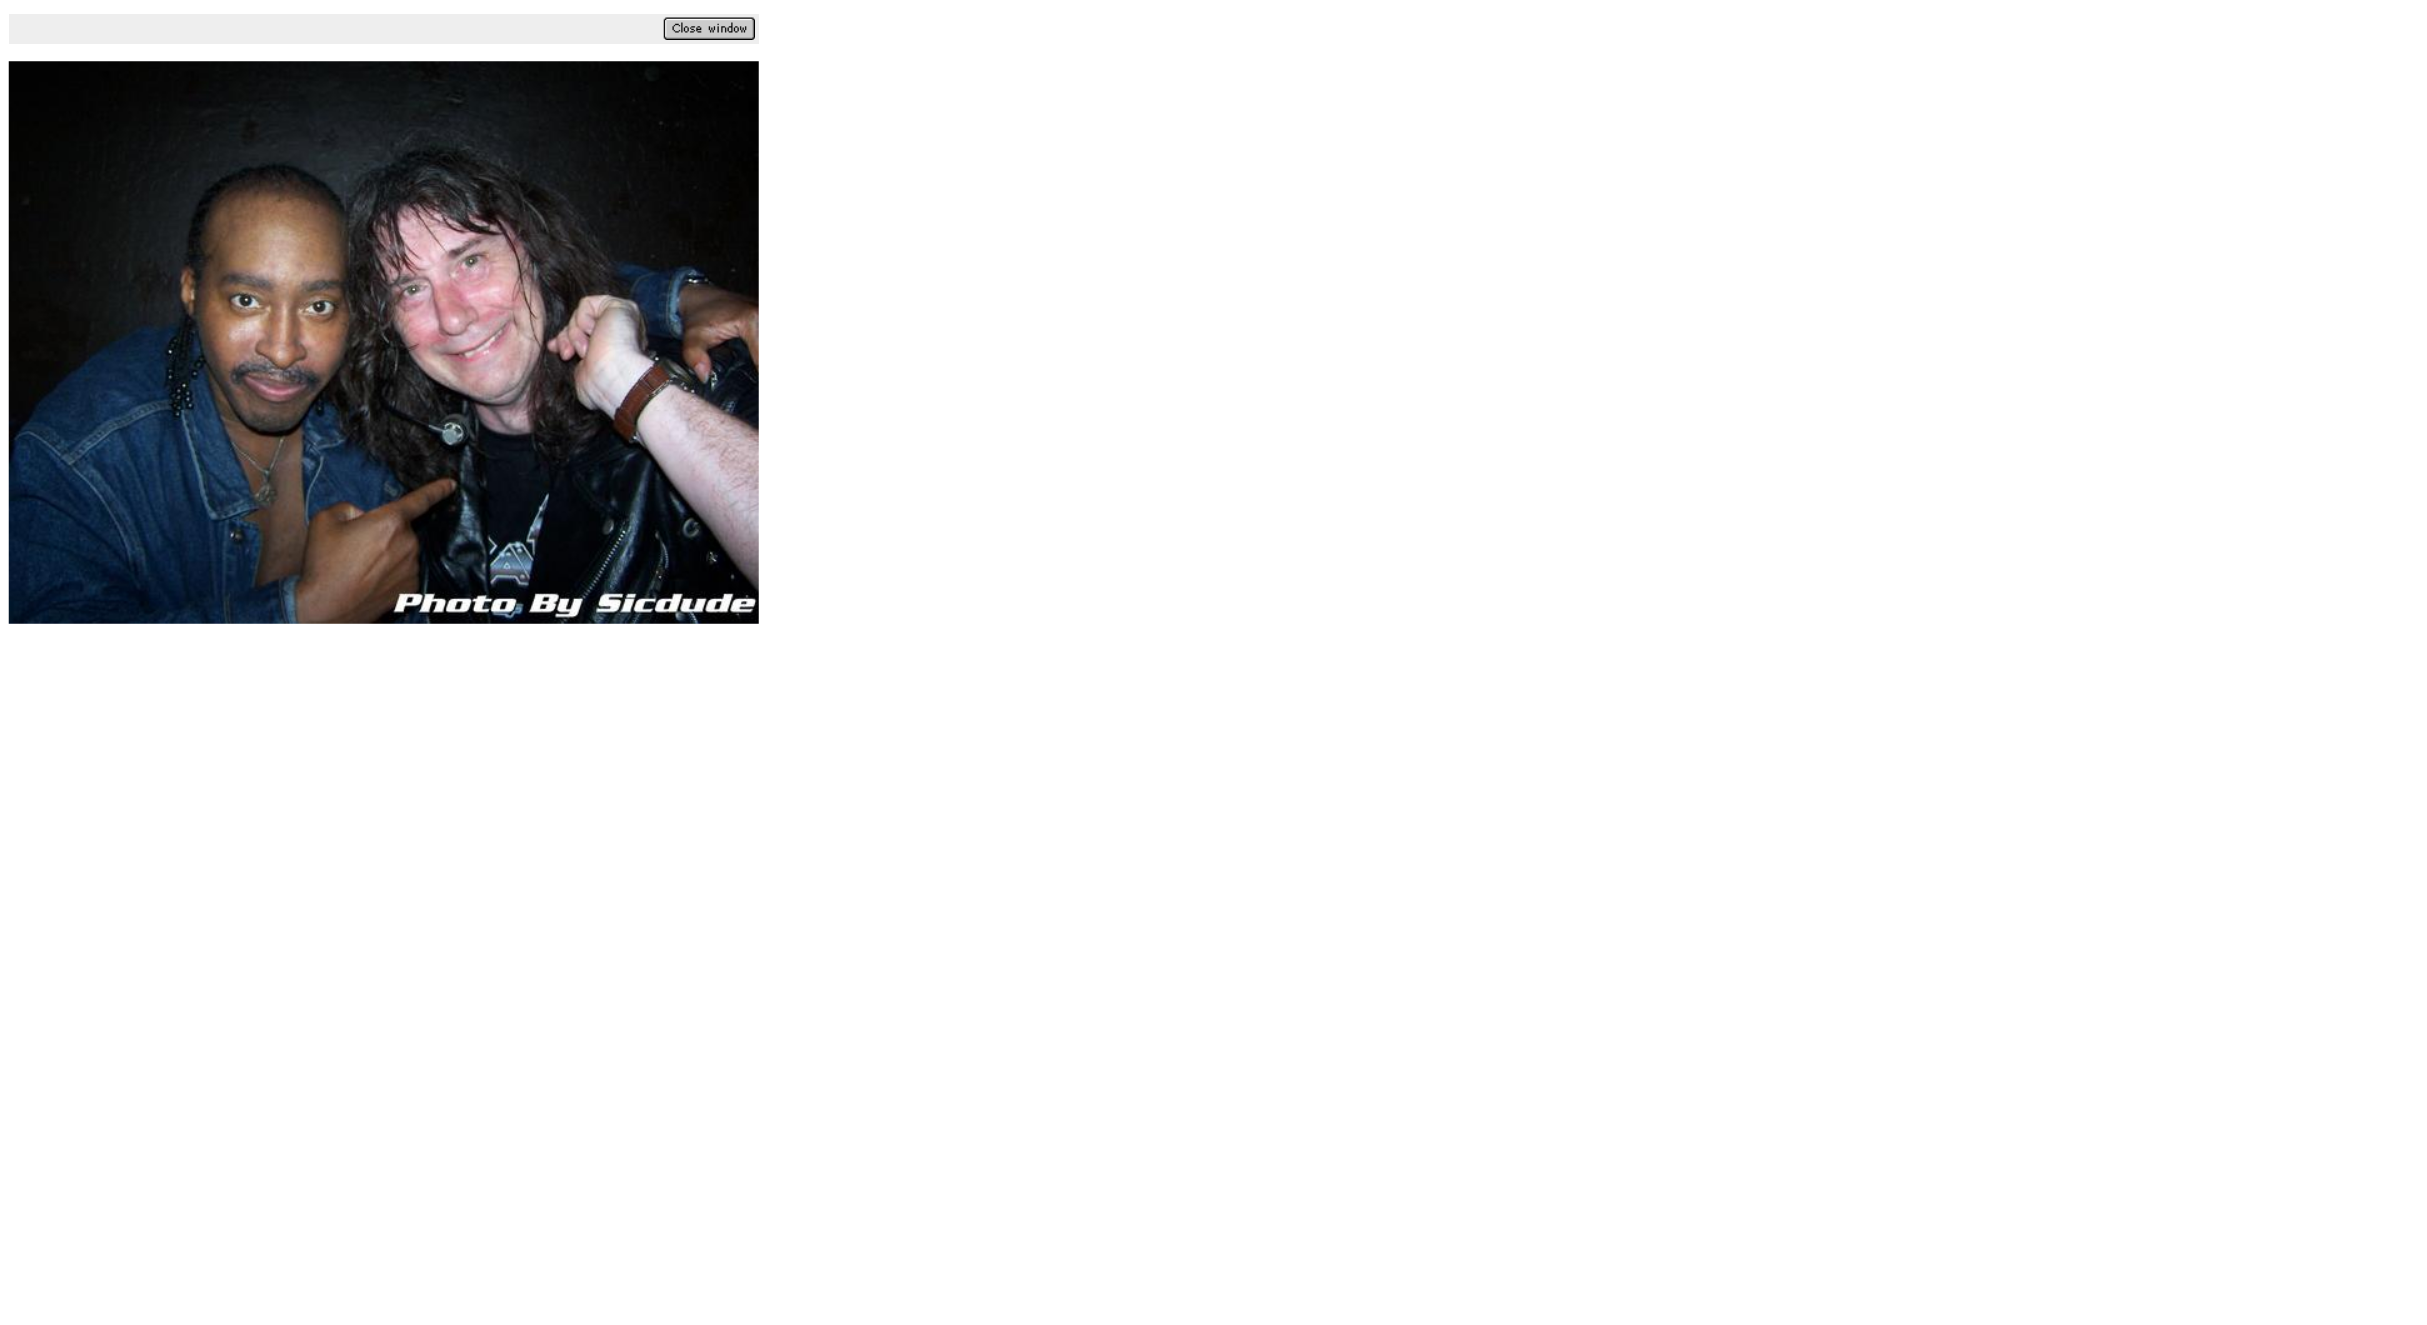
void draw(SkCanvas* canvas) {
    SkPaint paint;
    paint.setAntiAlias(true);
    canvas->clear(0xFFFFFFFF);
    paint.setColor(0xFFEEEEEE);
    canvas->drawRect(SkRect::MakeXYWH(9, 14, 750, 30), paint);
    canvas->drawImageRect(SkImages::DeferredFromEncodedData(SkData::MakeFromFileName("img1.png")), SkRect::MakeXYWH(663, 17, 92, 23), SkSamplingOptions());
    canvas->drawImageRect(SkImages::DeferredFromEncodedData(SkData::MakeFromFileName("img2.png")), SkRect::MakeXYWH(8, 61, 751, 563), SkSamplingOptions());
}
